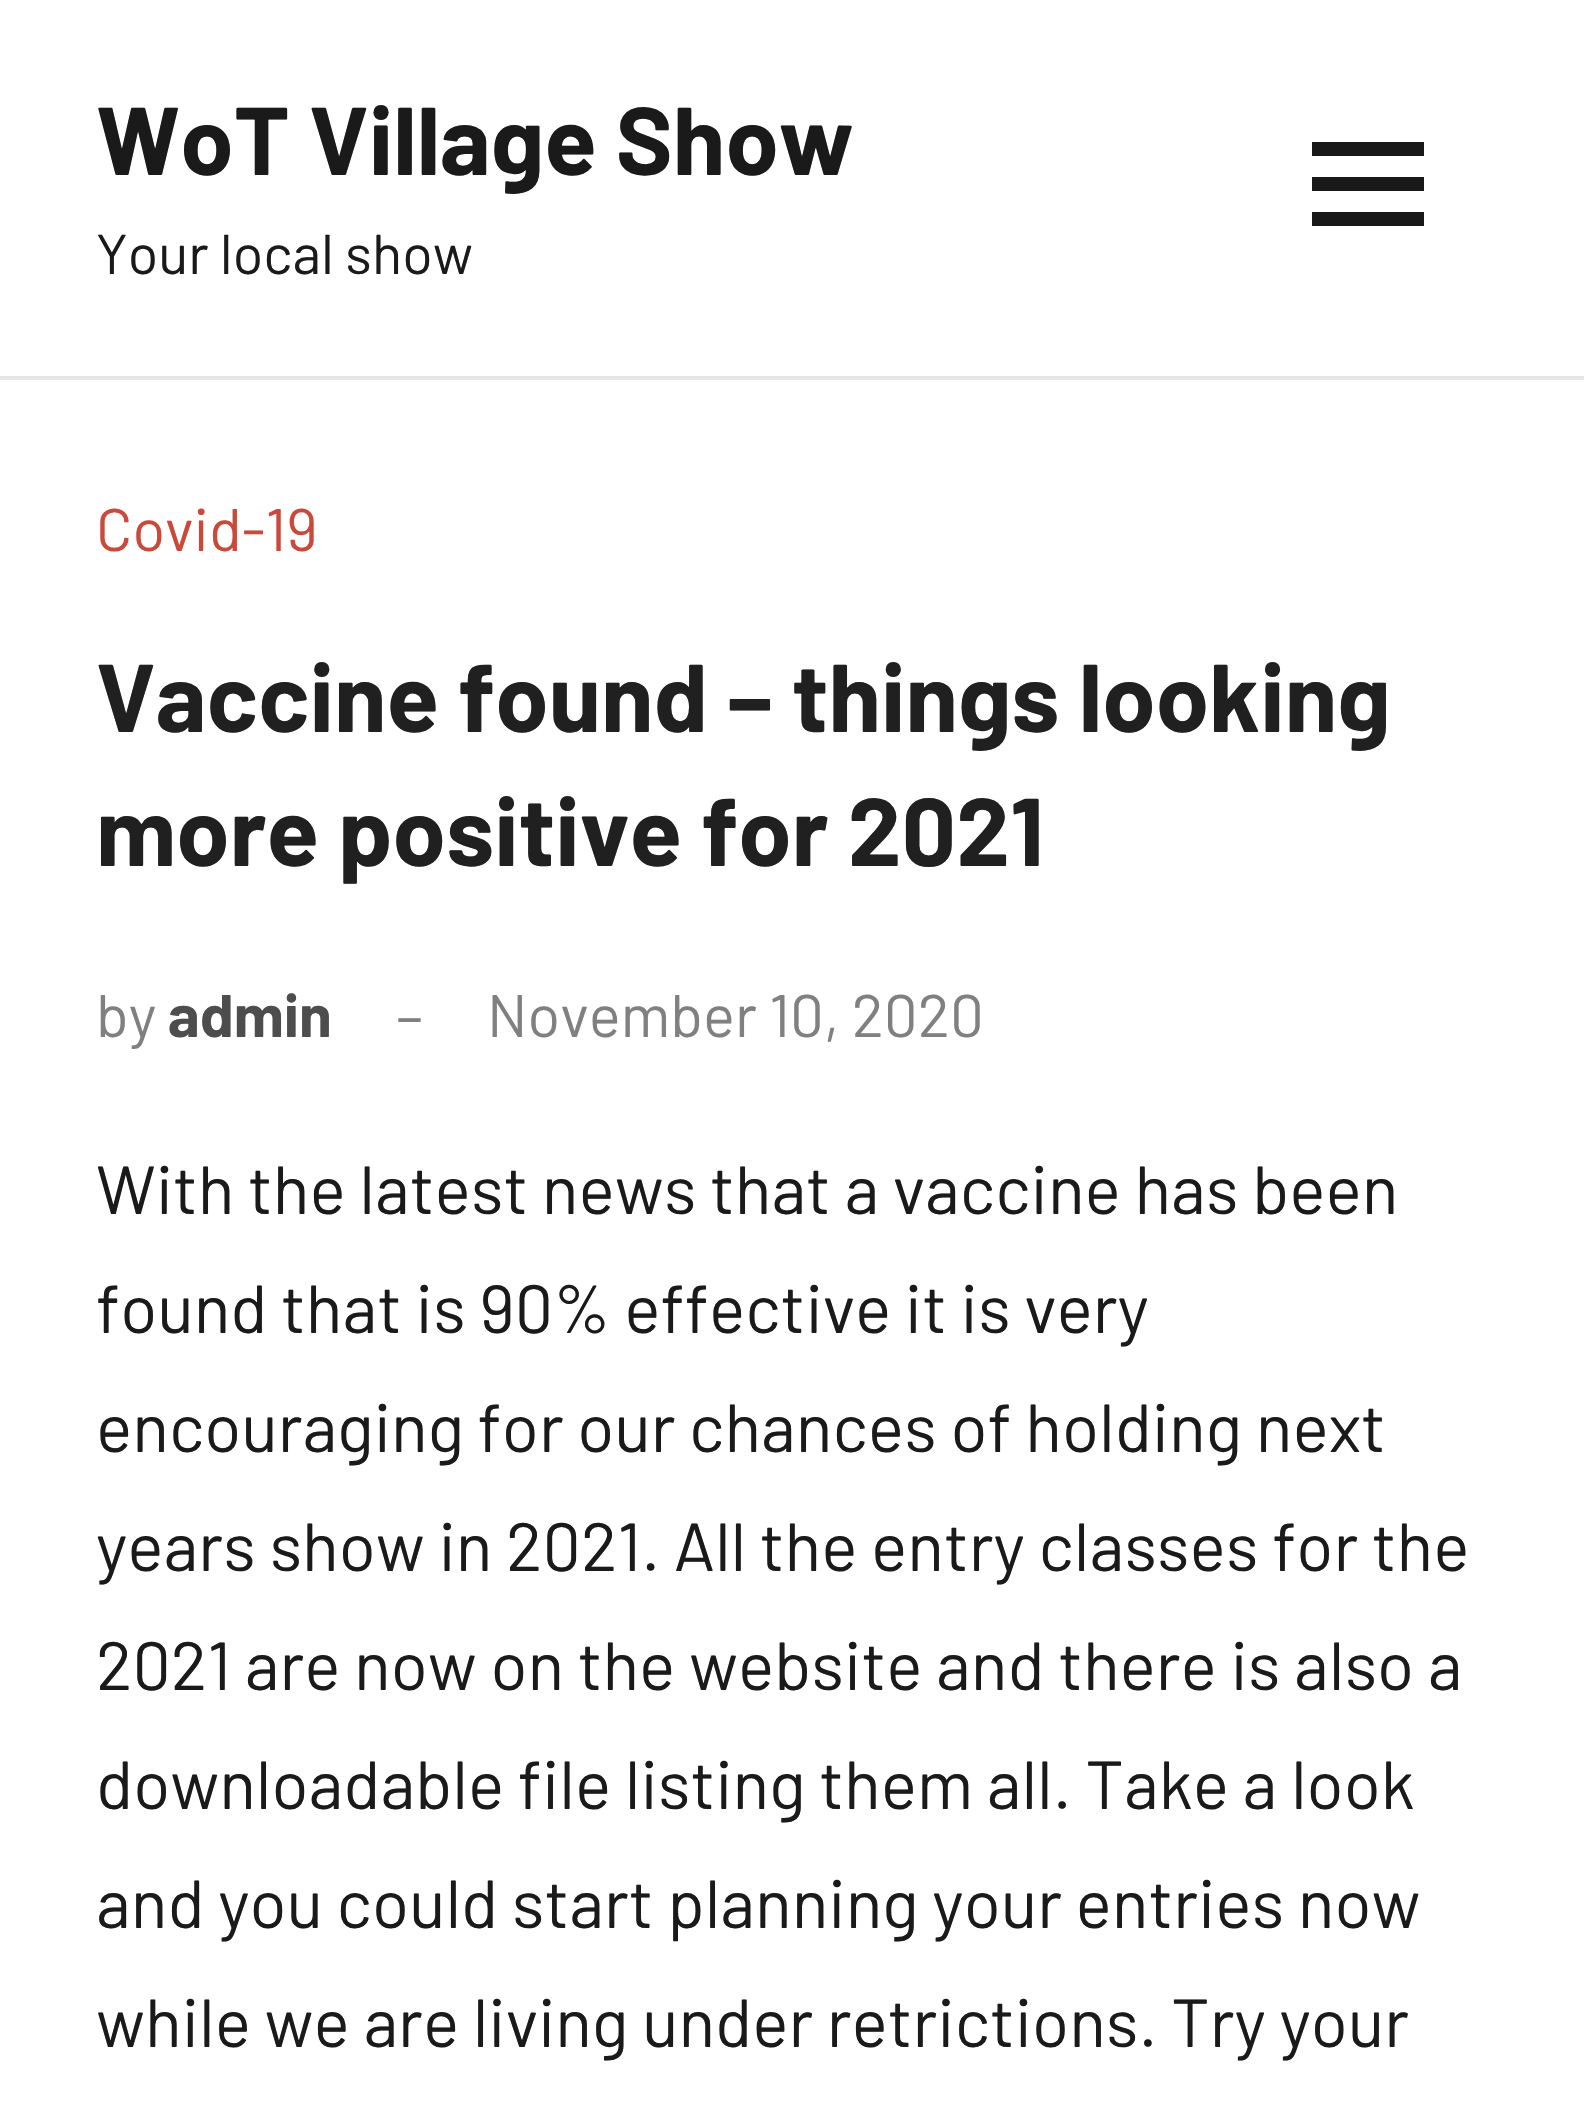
void draw(SkCanvas* canvas) {
    SkPaint paint;
    paint.setAntiAlias(true);
    canvas->clear(0xFFFFFFFF);
    paint.setColor(0xFFE6E6E6);
    canvas->drawRect(SkRect::MakeXYWH(0, 376, 1584, 4), paint);
    SkFont font1(fontMgr->matchFamilyStyle("Barlow", SkFontStyle::Bold()), 96);
    font1.setSubpixel(true);
    paint.setColor(0xFF1A1A1A);
    canvas->drawString("WoT Village Show", 96, 175, font1, paint);
    SkFont font2(fontMgr->matchFamilyStyle("Barlow", SkFontStyle::Normal()), 56);
    font2.setSubpixel(true);
    canvas->drawString("Your local show", 96, 274, font2, paint);
    canvas->drawImageRect(SkImages::DeferredFromEncodedData(SkData::MakeFromFileName("img1.png")), SkRect::MakeXYWH(1312, 142, 112, 84), SkSamplingOptions());
    SkFont font3(fontMgr->matchFamilyStyle("Barlow", SkFontStyle::Normal()), 60);
    font3.setSubpixel(true);
    paint.setColor(0xFFC9493B);
    canvas->drawString("Covid-19", 96, 551, font3, paint);
    paint.setColor(0xFF202020);
    canvas->drawString("Vaccine found – things looking", 96, 732, font1, paint);
    canvas->drawString("more positive for 2021", 96, 866, font1, paint);
    paint.setColor(0xFF808080);
    canvas->drawString("by", 96, 1037, font3, paint);
    SkFont font4(fontMgr->matchFamilyStyle("Barlow", SkFontStyle::Bold()), 60);
    font4.setSubpixel(true);
    paint.setColor(0xFF4D4D4D);
    canvas->drawString("admin", 168, 1037, font4, paint);
    paint.setColor(0xFF808080);
    canvas->drawString("–", 396, 1037, font3, paint);
    canvas->drawString("November 10, 2020", 487, 1037, font3, paint);
    SkFont font5(fontMgr->matchFamilyStyle("Barlow", SkFontStyle::Normal()), 68);
    font5.setSubpixel(true);
    paint.setColor(0xFF1A1A1A);
    canvas->drawString("With the latest news that a vaccine has been", 96, 1214, font5, paint);
    canvas->drawString("found that is 90% effective it is very", 96, 1333, font5, paint);
    canvas->drawString("encouraging for our chances of holding next", 96, 1452, font5, paint);
    canvas->drawString("years show in 2021. All the entry classes for the", 96, 1571, font5, paint);
    canvas->drawString("2021 are now on the website and there is also a", 96, 1690, font5, paint);
    canvas->drawString("downloadable file listing them all. Take a look", 96, 1809, font5, paint);
    canvas->drawString("and you could start planning your entries now", 96, 1928, font5, paint);
    canvas->drawString("while we are living under retrictions. Try your", 96, 2047, font5, paint);
}
